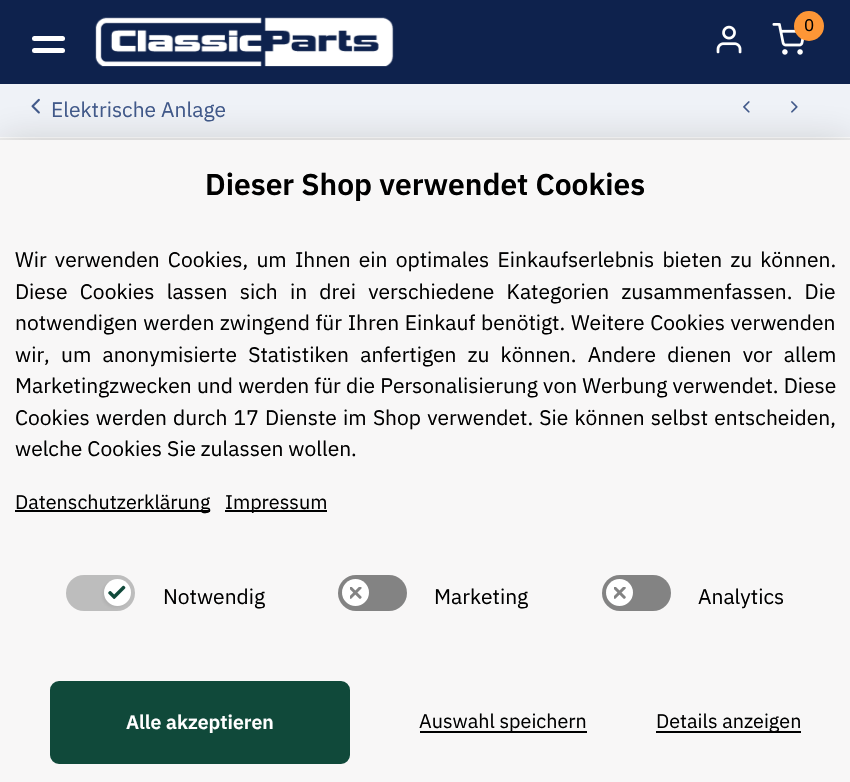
void draw(SkCanvas* canvas) {
    SkPaint paint;
    paint.setAntiAlias(true);
    auto spacedText = [&](const char* s, float x, float y, const SkFont& font, const SkPaint& ink, float letter, float word) {
        std::vector<SkGlyphID> glyphs(font.countText(s, strlen(s), SkTextEncoding::kUTF8));
        std::vector<float> xs(glyphs.size());
        font.textToGlyphs(s, strlen(s), SkTextEncoding::kUTF8, glyphs);
        font.getXPos(glyphs, xs, x);
        float extra = 0;
        for (size_t i = 0; i < glyphs.size(); i++) {
            xs[i] += extra;
            extra += letter + word * (glyphs[i] == font.unicharToGlyph(' '));
        }
        canvas->drawTextBlob(SkTextBlob::MakeFromPosHGlyphs(glyphs, xs, y, font), 0, 0, ink);
    };
    canvas->clear(0xFFFFFFFF);
    paint.setColor(0xFF0E224D);
    canvas->drawRect(SkRect::MakeXYWH(0, 0, 850, 84), paint);
    paint.setColor(0xFFFFFFFF);
    canvas->drawRoundRect(SkRect::MakeXYWH(32, 36, 33, 5), 2.5f, 2.5f, paint);
    canvas->drawRoundRect(SkRect::MakeXYWH(32, 48, 33, 5), 2.5f, 2.5f, paint);
    canvas->drawImageRect(SkImages::DeferredFromEncodedData(SkData::MakeFromFileName("img1.png")), SkRect::MakeXYWH(95, 17, 299, 50), SkSamplingOptions());
    canvas->drawImageRect(SkImages::DeferredFromEncodedData(SkData::MakeFromFileName("img2.png")), SkRect::MakeXYWH(716, 25, 26, 29), SkSamplingOptions());
    canvas->drawImageRect(SkImages::DeferredFromEncodedData(SkData::MakeFromFileName("img3.png")), SkRect::MakeXYWH(772, 23, 32, 32), SkSamplingOptions());
    paint.setColor(0xFFFD9636);
    canvas->drawCircle(809, 26, 15, paint);
    SkFont font1(fontMgr->matchFamilyStyle("IBM Plex Sans", SkFontStyle::Normal()), 17);
    font1.setSubpixel(true);
    paint.setColor(0xFF000000);
    canvas->drawString("0", 804, 31, font1, paint);
    paint.setColor(0xFFF0F3F8);
    canvas->drawRect(SkRect::MakeXYWH(0, 84, 850, 53), paint);
    canvas->drawImageRect(SkImages::DeferredFromEncodedData(SkData::MakeFromFileName("img4.png")), SkRect::MakeXYWH(31, 98, 9, 16), SkSamplingOptions());
    SkFont font2(fontMgr->matchFamilyStyle("IBM Plex Sans", SkFontStyle::Normal()), 21);
    font2.setSubpixel(true);
    paint.setColor(0xFF425A8B);
    canvas->drawString("Elektrische Anlage", 51, 117, font2, paint);
    canvas->drawImageRect(SkImages::DeferredFromEncodedData(SkData::MakeFromFileName("img5.png")), SkRect::MakeXYWH(743, 101, 7, 12), SkSamplingOptions());
    canvas->drawImageRect(SkImages::DeferredFromEncodedData(SkData::MakeFromFileName("img6.png")), SkRect::MakeXYWH(791, 101, 7, 12), SkSamplingOptions());
    paint.setStyle(SkPaint::kStroke_Style);
    paint.setStrokeWidth(2);
    paint.setColor(0xFFF0F0F0);
    canvas->drawRect(SkRect::MakeXYWH(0, 139, 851, 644), paint);
    paint.setStyle(SkPaint::kFill_Style);
    paint.setColor(0x29000000);
    paint.setMaskFilter(SkMaskFilter::MakeBlur(kNormal_SkBlurStyle, 18));
    canvas->drawRect(SkRect::MakeXYWH(0, 140, 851, 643), paint);
    paint.setMaskFilter(nullptr);
    paint.setColor(0xFFF8F7F7);
    canvas->drawRect(SkRect::MakeXYWH(0, 140, 850, 642), paint);
    SkFont font3(fontMgr->matchFamilyStyle("IBM Plex Sans", SkFontStyle(600, SkFontStyle::kNormal_Width, SkFontStyle::kUpright_Slant)), 30);
    font3.setSubpixel(true);
    paint.setColor(0xFF000000);
    canvas->drawString("Dieser Shop verwendet Cookies", 205, 195, font3, paint);
    spacedText("Wir verwenden Cookies, um Ihnen ein optimales Einkaufserlebnis bieten zu können.", 15, 267, font2, paint, 0, 3.25f);
    spacedText("Diese Cookies lassen sich in drei verschiedene Kategorien zusammenfassen. Die", 15, 299, font2, paint, 0, 7.25f);
    spacedText("notwendigen werden zwingend für Ihren Einkauf benötigt. Weitere Cookies verwenden", 15, 330, font2, paint, 0, 0.75f);
    spacedText("wir, um anonymisierte Statistiken anfertigen zu können. Andere dienen vor allem", 15, 362, font2, paint, 0, 6.25f);
    spacedText("Marketingzwecken und werden für die Personalisierung von Werbung verwendet. Diese", 15, 393, font2, paint, 0, 0.25f);
    spacedText("Cookies werden durch 17 Dienste im Shop verwendet. Sie können selbst entscheiden,", 15, 425, font2, paint, 0, 1.25f);
    canvas->drawString("welche Cookies Sie zulassen wollen.", 15, 456, font2, paint);
    canvas->drawRect(SkRect::MakeXYWH(15, 510, 195, 2), paint);
    SkFont font4(fontMgr->matchFamilyStyle("IBM Plex Sans", SkFontStyle::Normal()), 19.75f);
    font4.setSubpixel(true);
    canvas->drawString("Datenschutzerklärung", 15, 509, font4, paint);
    canvas->drawRect(SkRect::MakeXYWH(225, 510, 102, 2), paint);
    canvas->drawString("Impressum", 225, 509, font4, paint);
    paint.setColor(0xFFBDBDBD);
    canvas->drawRoundRect(SkRect::MakeXYWH(66, 575, 69, 36), 18, 18, paint);
    paint.setColor(0x73A3A3A3);
    paint.setMaskFilter(SkMaskFilter::MakeBlur(kNormal_SkBlurStyle, 1.5f));
    canvas->drawRoundRect(SkRect::MakeXYWH(102, 581, 27, 27), 13.5f, 13.5f, paint);
    paint.setMaskFilter(nullptr);
    paint.setColor(0xFFFFFFFF);
    canvas->drawCircle(117.5f, 592.5f, 13.5f, paint);
    canvas->drawImageRect(SkImages::DeferredFromEncodedData(SkData::MakeFromFileName("img7.png")), SkRect::MakeXYWH(108, 585, 18, 14), SkSamplingOptions());
    paint.setColor(0xFF000000);
    canvas->drawString("Notwendig", 163, 604, font2, paint);
    paint.setColor(0xFF838383);
    canvas->drawRoundRect(SkRect::MakeXYWH(338, 575, 69, 36), 18, 18, paint);
    paint.setColor(0xFFFFFFFF);
    canvas->drawCircle(355.5f, 592.5f, 13.5f, paint);
    canvas->drawImageRect(SkImages::DeferredFromEncodedData(SkData::MakeFromFileName("img8.png")), SkRect::MakeXYWH(350, 587, 12, 12), SkSamplingOptions());
    paint.setColor(0xFF000000);
    canvas->drawString("Marketing", 434, 604, font2, paint);
    paint.setColor(0xFF838383);
    canvas->drawRoundRect(SkRect::MakeXYWH(602, 575, 69, 36), 18, 18, paint);
    paint.setColor(0xFFFFFFFF);
    canvas->drawCircle(619.5f, 592.5f, 13.5f, paint);
    canvas->drawImageRect(SkImages::DeferredFromEncodedData(SkData::MakeFromFileName("img9.png")), SkRect::MakeXYWH(614, 587, 12, 12), SkSamplingOptions());
    paint.setColor(0xFF000000);
    canvas->drawString("Analytics", 698, 604, font2, paint);
    paint.setColor(0xFF10493A);
    canvas->drawRoundRect(SkRect::MakeXYWH(51.5f, 682.5f, 297, 80), 7.5f, 7.5f, paint);
    paint.setStyle(SkPaint::kStroke_Style);
    paint.setStrokeWidth(3);
    canvas->drawRoundRect(SkRect::MakeXYWH(51.5f, 682.5f, 297, 80), 7.5f, 7.5f, paint);
    SkFont font5(fontMgr->matchFamilyStyle("IBM Plex Sans", SkFontStyle(600, SkFontStyle::kNormal_Width, SkFontStyle::kUpright_Slant)), 19.5f);
    font5.setSubpixel(true);
    paint.setStyle(SkPaint::kFill_Style);
    paint.setColor(0xFFFFFFFF);
    canvas->drawString("Alle akzeptieren", 126, 729, font5, paint);
    paint.setColor(0xFF000000);
    canvas->drawRect(SkRect::MakeXYWH(420, 731, 167, 2), paint);
    canvas->drawString("Auswahl speichern", 419, 728, font4, paint);
    canvas->drawRect(SkRect::MakeXYWH(656, 731, 145, 2), paint);
    canvas->drawString("Details anzeigen", 656, 728, font4, paint);
}
